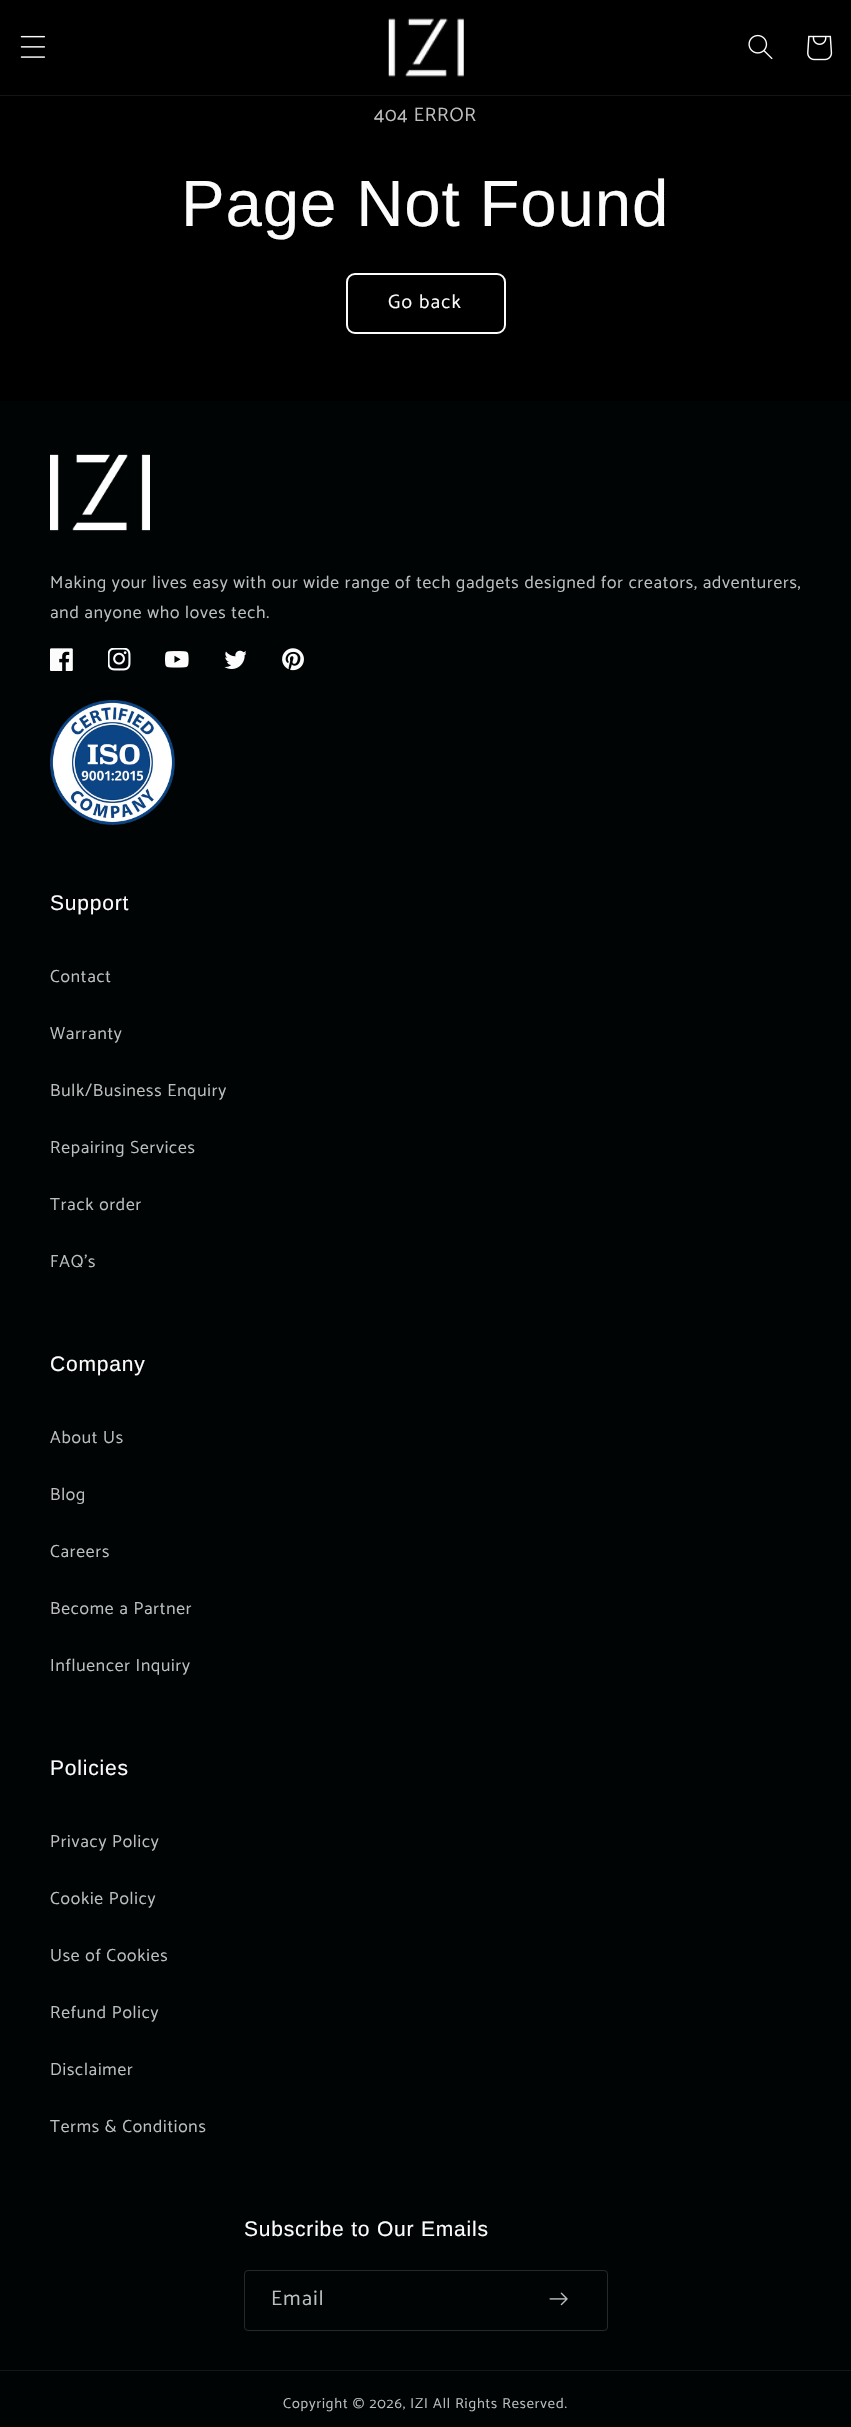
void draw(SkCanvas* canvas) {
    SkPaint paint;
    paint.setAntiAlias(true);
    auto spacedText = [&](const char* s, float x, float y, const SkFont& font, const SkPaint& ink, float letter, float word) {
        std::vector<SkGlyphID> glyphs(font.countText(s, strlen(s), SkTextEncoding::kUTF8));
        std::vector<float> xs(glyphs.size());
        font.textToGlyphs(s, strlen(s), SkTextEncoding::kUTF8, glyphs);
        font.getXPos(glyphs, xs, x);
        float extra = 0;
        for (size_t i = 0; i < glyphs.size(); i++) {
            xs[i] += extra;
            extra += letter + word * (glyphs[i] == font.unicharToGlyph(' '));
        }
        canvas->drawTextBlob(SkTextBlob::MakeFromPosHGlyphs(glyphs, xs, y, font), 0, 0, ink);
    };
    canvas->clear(0xFF000000);
    paint.setColor(0xFF141414);
    canvas->drawRect(SkRect::MakeXYWH(0, 95, 851, 1), paint);
    canvas->drawImageRect(SkImages::DeferredFromEncodedData(SkData::MakeFromFileName("img1.png")), SkRect::MakeXYWH(20, 35, 26, 23), SkSamplingOptions());
    canvas->drawImageRect(SkImages::DeferredFromEncodedData(SkData::MakeFromFileName("img2.png")), SkRect::MakeXYWH(388, 18, 76, 59), SkSamplingOptions());
    canvas->drawImageRect(SkImages::DeferredFromEncodedData(SkData::MakeFromFileName("img3.png")), SkRect::MakeXYWH(748, 34, 25, 26), SkSamplingOptions());
    canvas->drawImageRect(SkImages::DeferredFromEncodedData(SkData::MakeFromFileName("img4.png")), SkRect::MakeXYWH(807, 35, 26, 26), SkSamplingOptions());
    SkFont font1(fontMgr->matchFamilyStyle("Catamaran", SkFontStyle::Normal()), 19.5f);
    font1.setSubpixel(true);
    paint.setColor(0xFFBDBEBE);
    spacedText("404 ERROR", 374, 121, font1, paint, 0.8f, 0);
    SkFont font2(fontMgr->matchFamilyStyle("Arimo", SkFontStyle::Normal()), 65.5f);
    font2.setSubpixel(true);
    paint.setColor(0xFFFCFCFC);
    spacedText("Page Not Found", 181, 226, font2, paint, 0.8f, 0);
    paint.setStyle(SkPaint::kStroke_Style);
    paint.setStrokeWidth(2);
    canvas->drawRoundRect(SkRect::MakeXYWH(347, 274, 158, 59), 8, 8, paint);
    paint.setStyle(SkPaint::kFill_Style);
    spacedText("Go back", 388, 308, font1, paint, 1.25f, 0);
    paint.setColor(0xFF000405);
    canvas->drawRect(SkRect::MakeXYWH(0, 401, 851, 2026), paint);
    canvas->drawImageRect(SkImages::DeferredFromEncodedData(SkData::MakeFromFileName("img5.png")), SkRect::MakeXYWH(50, 454, 100, 77), SkSamplingOptions());
    SkFont font3(fontMgr->matchFamilyStyle("Catamaran", SkFontStyle::Normal()), 17.5f);
    font3.setSubpixel(true);
    paint.setColor(0xFFBDBEBE);
    spacedText("Making your lives easy with our wide range of tech gadgets designed for creators, adventurers,", 50, 588, font3, paint, 0.8f, 0);
    spacedText("and anyone who loves tech.", 50, 618, font3, paint, 0.8f, 0);
    canvas->drawImageRect(SkImages::DeferredFromEncodedData(SkData::MakeFromFileName("img6.png")), SkRect::MakeXYWH(50, 648, 23, 23), SkSamplingOptions());
    canvas->drawImageRect(SkImages::DeferredFromEncodedData(SkData::MakeFromFileName("img7.png")), SkRect::MakeXYWH(108, 648, 23, 23), SkSamplingOptions());
    canvas->drawImageRect(SkImages::DeferredFromEncodedData(SkData::MakeFromFileName("img8.png")), SkRect::MakeXYWH(165, 651, 24, 17), SkSamplingOptions());
    canvas->drawImageRect(SkImages::DeferredFromEncodedData(SkData::MakeFromFileName("img9.png")), SkRect::MakeXYWH(224, 650, 22, 19), SkSamplingOptions());
    canvas->drawImageRect(SkImages::DeferredFromEncodedData(SkData::MakeFromFileName("img10.png")), SkRect::MakeXYWH(282, 648, 22, 23), SkSamplingOptions());
    canvas->drawImageRect(SkImages::DeferredFromEncodedData(SkData::MakeFromFileName("img11.png")), SkRect::MakeXYWH(50, 700, 125, 125), SkSamplingOptions());
    SkFont font4(fontMgr->matchFamilyStyle("Arimo", SkFontStyle::Normal()), 21);
    font4.setSubpixel(true);
    paint.setColor(0xFFFCFCFC);
    spacedText("Support", 50, 910, font4, paint, 0.8f, 0);
    paint.setColor(0xFFBDBEBE);
    spacedText("Contact", 50, 982, font3, paint, 0.8f, 0);
    spacedText("Warranty", 50, 1039, font3, paint, 0.8f, 0);
    spacedText("Bulk/Business Enquiry", 50, 1096, font3, paint, 0.8f, 0);
    spacedText("Repairing Services", 50, 1153, font3, paint, 0.8f, 0);
    spacedText("Track order", 50, 1210, font3, paint, 0.8f, 0);
    spacedText("FAQ's", 50, 1267, font3, paint, 0.8f, 0);
    paint.setColor(0xFFFCFCFC);
    spacedText("Company", 50, 1371, font4, paint, 0.8f, 0);
    paint.setColor(0xFFBDBEBE);
    spacedText("About Us", 50, 1443, font3, paint, 0.8f, 0);
    spacedText("Blog", 50, 1500, font3, paint, 0.8f, 0);
    spacedText("Careers", 50, 1557, font3, paint, 0.8f, 0);
    spacedText("Become a Partner", 50, 1614, font3, paint, 0.8f, 0);
    spacedText("Influencer Inquiry", 50, 1671, font3, paint, 0.8f, 0);
    paint.setColor(0xFFFCFCFC);
    spacedText("Policies", 50, 1775, font4, paint, 0.8f, 0);
    paint.setColor(0xFFBDBEBE);
    spacedText("Privacy Policy", 50, 1847, font3, paint, 0.8f, 0);
    spacedText("Cookie Policy", 50, 1904, font3, paint, 0.8f, 0);
    spacedText("Use of Cookies", 50, 1961, font3, paint, 0.8f, 0);
    spacedText("Refund Policy", 50, 2018, font3, paint, 0.8f, 0);
    spacedText("Disclaimer", 50, 2075, font3, paint, 0.8f, 0);
    spacedText("Terms & Conditions", 50, 2132, font3, paint, 0.8f, 0);
    paint.setColor(0xFFFCFCFC);
    spacedText("Subscribe to Our Emails", 244, 2236, font4, paint, 0.8f, 0);
    paint.setStyle(SkPaint::kStroke_Style);
    paint.setStrokeWidth(1);
    paint.setColor(0xFF26292A);
    canvas->drawRoundRect(SkRect::MakeXYWH(244.5f, 2270.5f, 363, 60), 3.5f, 3.5f, paint);
    SkFont font5(fontMgr->matchFamilyStyle("Catamaran", SkFontStyle::Normal()), 21);
    font5.setSubpixel(true);
    paint.setStyle(SkPaint::kFill_Style);
    paint.setColor(0xFFBDBEBE);
    spacedText("Email", 271, 2305, font5, paint, 1.25f, 0);
    canvas->drawImageRect(SkImages::DeferredFromEncodedData(SkData::MakeFromFileName("img12.png")), SkRect::MakeXYWH(549, 2292, 19, 14), SkSamplingOptions());
    paint.setColor(0xFF141819);
    canvas->drawRect(SkRect::MakeXYWH(0, 2370, 851, 1), paint);
    SkFont font6(fontMgr->matchFamilyStyle("Catamaran", SkFontStyle::Normal()), 14.4f);
    font6.setSubpixel(true);
    paint.setColor(0xFFBDBEBE);
    spacedText("Copyright © 2026, IZI All Rights Reserved.", 283, 2408, font6, paint, 0.9f, 0);
}
